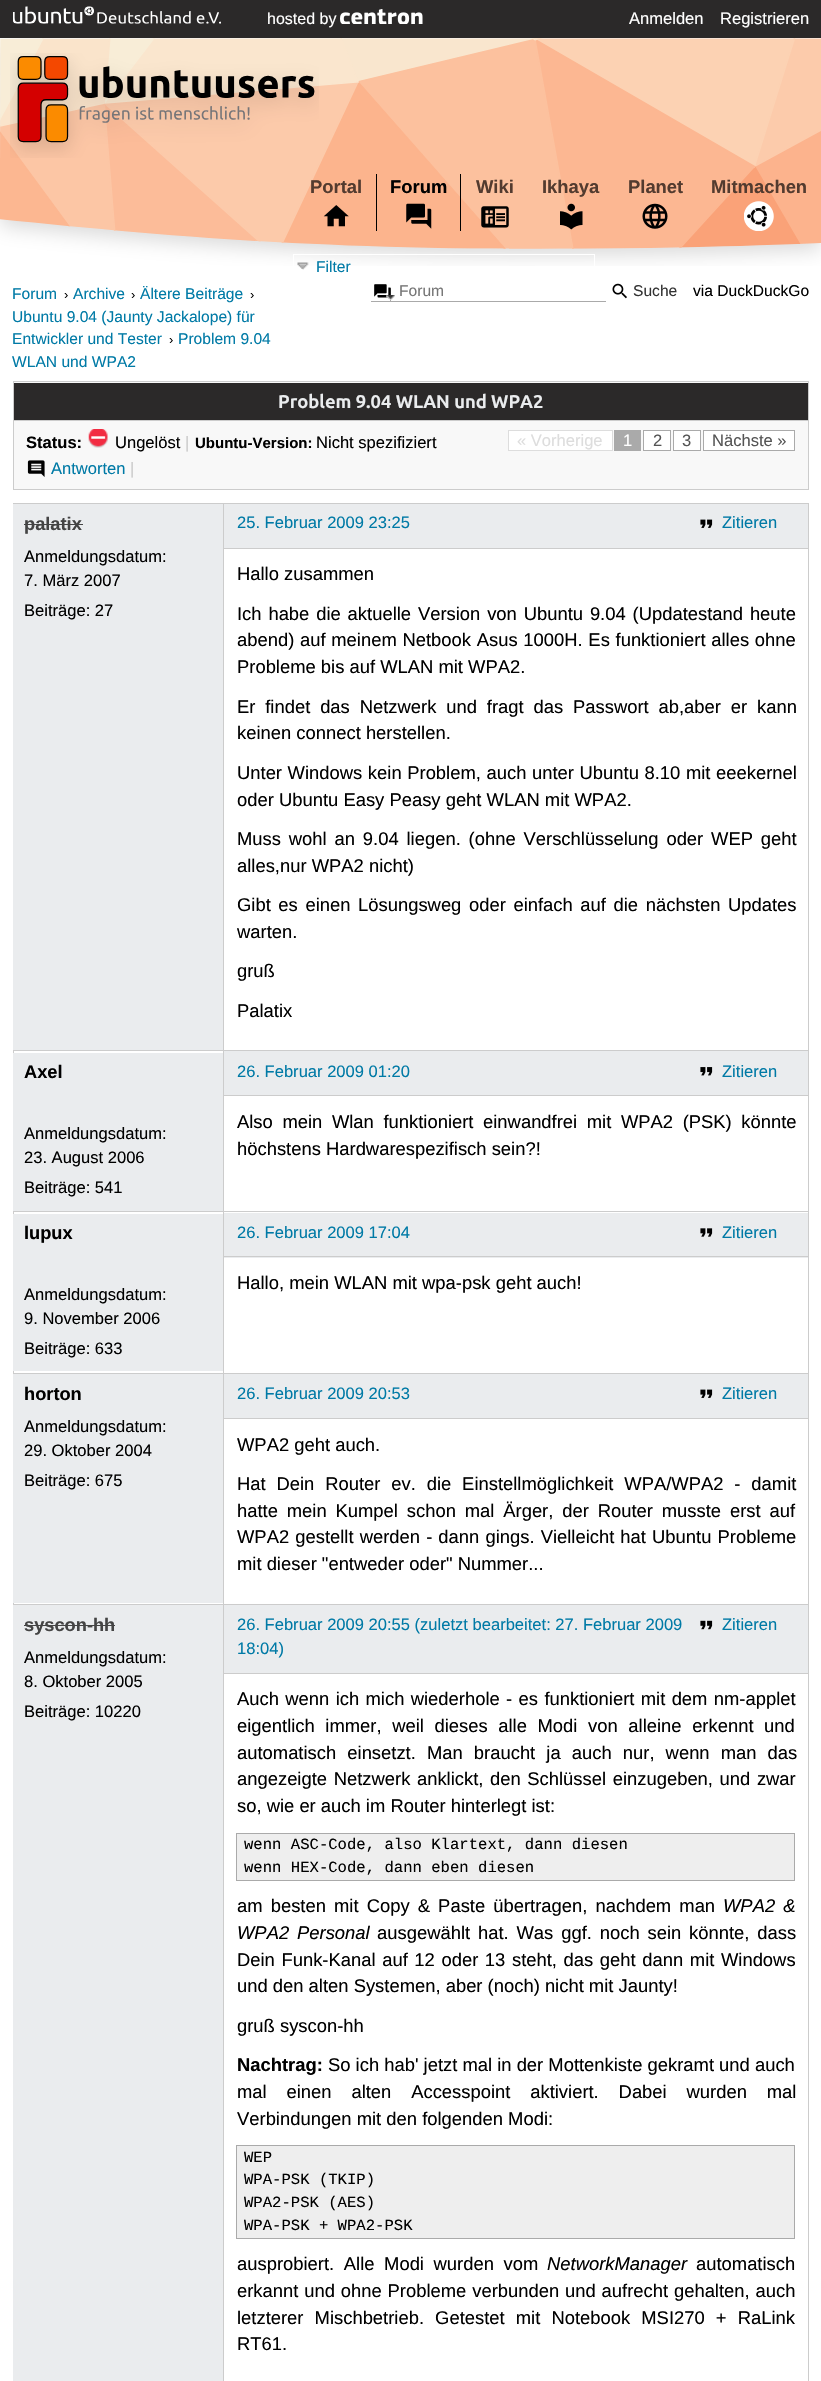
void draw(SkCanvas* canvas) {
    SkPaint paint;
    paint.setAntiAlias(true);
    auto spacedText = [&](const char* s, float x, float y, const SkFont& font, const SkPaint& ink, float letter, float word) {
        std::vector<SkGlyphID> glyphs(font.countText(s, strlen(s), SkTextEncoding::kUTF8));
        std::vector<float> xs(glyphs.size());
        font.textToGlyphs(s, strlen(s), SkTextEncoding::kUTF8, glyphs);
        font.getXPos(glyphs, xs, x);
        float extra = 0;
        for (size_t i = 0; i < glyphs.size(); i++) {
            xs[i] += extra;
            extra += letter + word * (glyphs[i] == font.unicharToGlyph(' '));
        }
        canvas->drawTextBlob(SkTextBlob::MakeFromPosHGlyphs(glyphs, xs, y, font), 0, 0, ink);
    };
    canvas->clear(0xFFFFFFFF);
    paint.setColor(0xFF2B2929);
    canvas->drawRect(SkRect::MakeXYWH(0, 0, 821, 38), paint);
    canvas->drawImageRect(SkImages::DeferredFromEncodedData(SkData::MakeFromFileName("img1.png")), SkRect::MakeXYWH(13, 6, 208, 18), SkSamplingOptions());
    SkFont font1(fontMgr->matchFamilyStyle("Liberation Sans", SkFontStyle::Normal()), 16);
    font1.setSubpixel(true);
    paint.setColor(0xFFFFFFFF);
    canvas->drawString("hosted by", 267, 24, font1, paint);
    canvas->drawImageRect(SkImages::DeferredFromEncodedData(SkData::MakeFromFileName("img2.png")), SkRect::MakeXYWH(340, 9, 83, 15), SkSamplingOptions());
    SkFont font2(fontMgr->matchFamilyStyle("Liberation Sans", SkFontStyle::Normal()), 16.55f);
    font2.setSubpixel(true);
    canvas->drawString("Anmelden", 629, 24, font2, paint);
    canvas->drawString("Registrieren", 720, 24, font2, paint);
    canvas->drawImageRect(SkImages::DeferredFromEncodedData(SkData::MakeFromFileName("img3.png")), SkRect::MakeXYWH(0, 38, 821, 228), SkSamplingOptions());
    canvas->drawImageRect(SkImages::DeferredFromEncodedData(SkData::MakeFromFileName("img4.png")), SkRect::MakeXYWH(10, 53, 309, 105), SkSamplingOptions());
    SkFont font3(fontMgr->matchFamilyStyle("Liberation Sans", SkFontStyle::Bold()), 18.4f);
    font3.setSubpixel(true);
    paint.setColor(0xFF533B2F);
    canvas->drawString("Portal", 310, 193, font3, paint);
    canvas->drawImageRect(SkImages::DeferredFromEncodedData(SkData::MakeFromFileName("img5.png")), SkRect::MakeXYWH(323, 205, 26, 22), SkSamplingOptions());
    paint.setColor(0xFF000000);
    canvas->drawRect(SkRect::MakeXYWH(460, 174, 1, 57), paint);
    canvas->drawRect(SkRect::MakeXYWH(376, 174, 1, 57), paint);
    canvas->drawString("Forum", 390, 193, font3, paint);
    canvas->drawImageRect(SkImages::DeferredFromEncodedData(SkData::MakeFromFileName("img6.png")), SkRect::MakeXYWH(406, 203, 26, 26), SkSamplingOptions());
    paint.setColor(0xFF533B2F);
    canvas->drawString("Wiki", 476, 193, font3, paint);
    canvas->drawImageRect(SkImages::DeferredFromEncodedData(SkData::MakeFromFileName("img7.png")), SkRect::MakeXYWH(481, 206, 28, 22), SkSamplingOptions());
    canvas->drawString("Ikhaya", 542, 193, font3, paint);
    canvas->drawImageRect(SkImages::DeferredFromEncodedData(SkData::MakeFromFileName("img8.png")), SkRect::MakeXYWH(560, 203, 23, 27), SkSamplingOptions());
    canvas->drawString("Planet", 628, 193, font3, paint);
    canvas->drawImageRect(SkImages::DeferredFromEncodedData(SkData::MakeFromFileName("img9.png")), SkRect::MakeXYWH(642, 203, 26, 26), SkSamplingOptions());
    canvas->drawString("Mitmachen", 711, 193, font3, paint);
    canvas->drawImageRect(SkImages::DeferredFromEncodedData(SkData::MakeFromFileName("img10.png")), SkRect::MakeXYWH(744, 201, 30, 30), SkSamplingOptions());
    paint.setStyle(SkPaint::kStroke_Style);
    paint.setStrokeWidth(1);
    paint.setColor(0xFFFFFFFF);
    canvas->drawRect(SkRect::MakeXYWH(293.5f, 254.5f, 301, 29), paint);
    canvas->drawImageRect(SkImages::DeferredFromEncodedData(SkData::MakeFromFileName("img11.png")), SkRect::MakeXYWH(297, 262, 12, 8), SkSamplingOptions());
    SkFont font4(fontMgr->matchFamilyStyle("Liberation Sans", SkFontStyle::Normal()), 15.6f);
    font4.setSubpixel(true);
    paint.setStyle(SkPaint::kFill_Style);
    paint.setColor(0xFF007AA6);
    canvas->drawString("Filter", 316, 272, font4, paint);
    canvas->drawString("Forum", 12, 299, font4, paint);
    SkFont font5(fontMgr->matchFamilyStyle("Liberation Sans", SkFontStyle::Normal()), 13);
    font5.setSubpixel(true);
    paint.setColor(0xFF000000);
    canvas->drawString("›", 64, 299, font5, paint);
    paint.setColor(0xFF007AA6);
    canvas->drawString("Archive", 73, 299, font4, paint);
    paint.setColor(0xFF000000);
    canvas->drawString("›", 131, 299, font5, paint);
    paint.setColor(0xFF007AA6);
    canvas->drawString("Ältere Beiträge", 140, 299, font4, paint);
    paint.setColor(0xFF000000);
    canvas->drawString("›", 250, 299, font5, paint);
    paint.setColor(0xFF007AA6);
    canvas->drawString("Ubuntu 9.04 (Jaunty Jackalope) für", 12, 322, font4, paint);
    canvas->drawString("Entwickler und Tester", 12, 344, font4, paint);
    paint.setColor(0xFF000000);
    canvas->drawString("›", 169, 344, font5, paint);
    paint.setColor(0xFF007AA6);
    canvas->drawString("Problem 9.04", 178, 344, font4, paint);
    canvas->drawString("WLAN und WPA2", 12, 367, font4, paint);
    canvas->drawImageRect(SkImages::DeferredFromEncodedData(SkData::MakeFromFileName("img12.png")), SkRect::MakeXYWH(374, 284, 17, 17), SkSamplingOptions());
    paint.setColor(0xFFAAAAAA);
    canvas->drawRect(SkRect::MakeXYWH(371, 301, 235, 1), paint);
    paint.setColor(0xFF757575);
    canvas->drawString("Forum", 399, 296, font4, paint);
    canvas->drawImageRect(SkImages::DeferredFromEncodedData(SkData::MakeFromFileName("img13.png")), SkRect::MakeXYWH(612, 283, 15, 16), SkSamplingOptions());
    paint.setColor(0xFF333333);
    canvas->drawString("Suche", 633, 296, font4, paint);
    paint.setColor(0xFF000000);
    canvas->drawString("via DuckDuckGo", 693, 296, font4, paint);
    canvas->drawImageRect(SkImages::DeferredFromEncodedData(SkData::MakeFromFileName("img14.png")), SkRect::MakeXYWH(386, 295, 9, 5), SkSamplingOptions());
    paint.setColor(0xFFF8F8F8);
    canvas->drawRect(SkRect::MakeXYWH(13.5f, 381.5f, 795, 108), paint);
    paint.setStyle(SkPaint::kStroke_Style);
    paint.setColor(0xFFCCCCCC);
    canvas->drawRect(SkRect::MakeXYWH(13.5f, 381.5f, 795, 108), paint);
    paint.setStyle(SkPaint::kFill_Style);
    paint.setColor(0xFF2B2929);
    canvas->drawRect(SkRect::MakeXYWH(14, 383, 794, 37), paint);
    paint.setColor(0xFFCCCCCC);
    canvas->drawRect(SkRect::MakeXYWH(14, 420, 794, 1), paint);
    SkFont font6(fontMgr->matchFamilyStyle("Ubuntu", SkFontStyle::Bold()), 18.4f);
    font6.setSubpixel(true);
    paint.setColor(0xFFEAECEE);
    canvas->drawString("Problem 9.04 WLAN und WPA2", 278, 408, font6, paint);
    SkFont font7(fontMgr->matchFamilyStyle("Liberation Sans", SkFontStyle::Bold()), 16.55f);
    font7.setSubpixel(true);
    paint.setColor(0xFF000000);
    canvas->drawString("Status:", 26, 448, font7, paint);
    canvas->drawImageRect(SkImages::DeferredFromEncodedData(SkData::MakeFromFileName("img15.png")), SkRect::MakeXYWH(88, 429, 20, 19), SkSamplingOptions());
    canvas->drawString("Ungelöst", 115, 448, font2, paint);
    paint.setColor(0xFFCCCCCC);
    canvas->drawString("|", 185, 448, font2, paint);
    SkFont font8(fontMgr->matchFamilyStyle("Liberation Sans", SkFontStyle::Bold()), 15);
    font8.setSubpixel(true);
    paint.setColor(0xFF000000);
    canvas->drawString("Ubuntu-Version:", 195, 448, font8, paint);
    canvas->drawString("Nicht spezifiziert", 316, 448, font2, paint);
    paint.setColor(0xFFFFFFFF);
    canvas->drawRect(SkRect::MakeXYWH(508.5f, 430.5f, 104, 20), paint);
    paint.setStyle(SkPaint::kStroke_Style);
    paint.setColor(0xFFDDDDDD);
    canvas->drawRect(SkRect::MakeXYWH(508.5f, 430.5f, 104, 20), paint);
    paint.setStyle(SkPaint::kFill_Style);
    canvas->drawString("« Vorherige", 517, 446, font2, paint);
    paint.setColor(0xFFAAAAAA);
    canvas->drawRect(SkRect::MakeXYWH(614, 430, 27, 21), paint);
    paint.setColor(0xFFFFFFFF);
    canvas->drawString("1", 623, 446, font2, paint);
    canvas->drawRect(SkRect::MakeXYWH(643.5f, 430.5f, 27, 20), paint);
    paint.setStyle(SkPaint::kStroke_Style);
    paint.setColor(0xFFAAAAAA);
    canvas->drawRect(SkRect::MakeXYWH(643.5f, 430.5f, 27, 20), paint);
    paint.setStyle(SkPaint::kFill_Style);
    paint.setColor(0xFF555555);
    canvas->drawString("2", 653, 446, font2, paint);
    paint.setColor(0xFFFFFFFF);
    canvas->drawRect(SkRect::MakeXYWH(673.5f, 430.5f, 27, 20), paint);
    paint.setStyle(SkPaint::kStroke_Style);
    paint.setColor(0xFFAAAAAA);
    canvas->drawRect(SkRect::MakeXYWH(673.5f, 430.5f, 27, 20), paint);
    paint.setStyle(SkPaint::kFill_Style);
    paint.setColor(0xFF555555);
    canvas->drawString("3", 682, 446, font2, paint);
    paint.setColor(0xFFFFFFFF);
    canvas->drawRect(SkRect::MakeXYWH(703.5f, 430.5f, 91, 20), paint);
    paint.setStyle(SkPaint::kStroke_Style);
    paint.setColor(0xFFAAAAAA);
    canvas->drawRect(SkRect::MakeXYWH(703.5f, 430.5f, 91, 20), paint);
    paint.setStyle(SkPaint::kFill_Style);
    paint.setColor(0xFF555555);
    canvas->drawString("Nächste »", 712, 446, font2, paint);
    canvas->drawImageRect(SkImages::DeferredFromEncodedData(SkData::MakeFromFileName("img16.png")), SkRect::MakeXYWH(27, 460, 18, 17), SkSamplingOptions());
    paint.setColor(0xFF007AA6);
    canvas->drawString("Antworten", 51, 474, font2, paint);
    paint.setColor(0xFFCCCCCC);
    canvas->drawString("|", 130, 474, font2, paint);
    canvas->drawRect(SkRect::MakeXYWH(13, 503, 796, 1), paint);
    canvas->drawRect(SkRect::MakeXYWH(808, 503, 1, 1878), paint);
    canvas->drawRect(SkRect::MakeXYWH(13, 503, 1, 1101), paint);
    paint.setColor(0xFFEAECEE);
    canvas->drawRect(SkRect::MakeXYWH(13, 504, 210, 546), paint);
    SkFont font9(fontMgr->matchFamilyStyle("Liberation Sans", SkFontStyle::Bold()), 18.25f);
    font9.setSubpixel(true);
    paint.setColor(0xFF444444);
    canvas->drawString("palatix", 24, 530, font9, paint);
    canvas->drawRect(SkRect::MakeXYWH(24, 524, 59, 1), paint);
    paint.setColor(0xFF000000);
    canvas->drawString("Anmeldungsdatum:", 24, 562, font2, paint);
    canvas->drawString("7. März 2007", 24, 586, font2, paint);
    canvas->drawString("Beiträge: 27", 24, 616, font2, paint);
    paint.setColor(0xFFEAECEE);
    canvas->drawRect(SkRect::MakeXYWH(224, 504, 584, 44), paint);
    paint.setColor(0xFFCCCCCC);
    canvas->drawRect(SkRect::MakeXYWH(224, 548, 584, 1), paint);
    paint.setColor(0xFF007AA6);
    canvas->drawString("25. Februar 2009 23:25", 237, 528, font2, paint);
    canvas->drawImageRect(SkImages::DeferredFromEncodedData(SkData::MakeFromFileName("img17.png")), SkRect::MakeXYWH(700, 519, 13, 9), SkSamplingOptions());
    canvas->drawString("Zitieren", 722, 528, font2, paint);
    SkFont font10(fontMgr->matchFamilyStyle("Liberation Sans", SkFontStyle::Normal()), 18.4f);
    font10.setSubpixel(true);
    paint.setColor(0xFF000000);
    canvas->drawString("Hallo zusammen", 237, 580, font10, paint);
    spacedText("Ich habe die aktuelle Version von Ubuntu 9.04 (Updatestand heute", 237, 620, font10, paint, 0, 1.75f);
    spacedText("abend) auf meinem Netbook Asus 1000H. Es funktioniert alles ohne", 237, 646, font10, paint, 0, 0.6f);
    canvas->drawString("Probleme bis auf WLAN mit WPA2.", 237, 673, font10, paint);
    spacedText("Er findet das Netzwerk und fragt das Passwort ab,aber er kann", 237, 713, font10, paint, 0, 4.75f);
    canvas->drawString("keinen connect herstellen.", 237, 739, font10, paint);
    spacedText("Unter Windows kein Problem, auch unter Ubuntu 8.10 mit eeekernel", 237, 779, font10, paint, 0, 0.5f);
    canvas->drawString("oder Ubuntu Easy Peasy geht WLAN mit WPA2.", 237, 806, font10, paint);
    spacedText("Muss wohl an 9.04 liegen. (ohne Verschlüsselung oder WEP geht", 237, 845, font10, paint, 0, 2.75f);
    canvas->drawString("alles,nur WPA2 nicht)", 237, 872, font10, paint);
    spacedText("Gibt es einen Lösungsweg oder einfach auf die nächsten Updates", 237, 911, font10, paint, 0, 2.5f);
    canvas->drawString("warten.", 237, 938, font10, paint);
    canvas->drawString("gruß", 237, 977, font10, paint);
    canvas->drawString("Palatix", 237, 1017, font10, paint);
    paint.setColor(0xFFCCCCCC);
    canvas->drawRect(SkRect::MakeXYWH(13, 1050, 796, 1), paint);
    canvas->drawRect(SkRect::MakeXYWH(13, 1211, 796, 1), paint);
    canvas->drawRect(SkRect::MakeXYWH(13, 1373, 796, 1), paint);
    canvas->drawRect(SkRect::MakeXYWH(13, 1604, 796, 1), paint);
    canvas->drawRect(SkRect::MakeXYWH(223, 1604, 1, 777), paint);
    canvas->drawRect(SkRect::MakeXYWH(223, 1373, 1, 232), paint);
    canvas->drawRect(SkRect::MakeXYWH(223, 1211, 1, 163), paint);
    canvas->drawRect(SkRect::MakeXYWH(223, 503, 1, 710), paint);
    paint.setColor(0xFFEAECEE);
    canvas->drawRect(SkRect::MakeXYWH(13, 1053, 210, 158), paint);
    paint.setColor(0xFF000000);
    canvas->drawString("Axel", 24, 1078, font9, paint);
    canvas->drawString("Anmeldungsdatum:", 24, 1139, font2, paint);
    canvas->drawString("23. August 2006", 24, 1163, font2, paint);
    canvas->drawString("Beiträge: 541", 24, 1193, font2, paint);
    paint.setColor(0xFFEAECEE);
    canvas->drawRect(SkRect::MakeXYWH(224, 1051, 584, 44), paint);
    paint.setColor(0xFFCCCCCC);
    canvas->drawRect(SkRect::MakeXYWH(224, 1095, 584, 1), paint);
    paint.setColor(0xFF007AA6);
    canvas->drawString("26. Februar 2009 01:20", 237, 1077, font2, paint);
    canvas->drawImageRect(SkImages::DeferredFromEncodedData(SkData::MakeFromFileName("img18.png")), SkRect::MakeXYWH(700, 1067, 13, 9), SkSamplingOptions());
    canvas->drawString("Zitieren", 722, 1077, font2, paint);
    paint.setColor(0xFF000000);
    spacedText("Also mein Wlan funktioniert einwandfrei mit WPA2 (PSK) könnte", 237, 1128, font10, paint, 0, 4.5f);
    canvas->drawString("höchstens Hardwarespezifisch sein?!", 237, 1155, font10, paint);
    paint.setColor(0xFFEAECEE);
    canvas->drawRect(SkRect::MakeXYWH(13, 1214, 210, 157), paint);
    paint.setColor(0xFF000000);
    canvas->drawString("lupux", 24, 1239, font9, paint);
    canvas->drawString("Anmeldungsdatum:", 24, 1300, font2, paint);
    canvas->drawString("9. November 2006", 24, 1324, font2, paint);
    canvas->drawString("Beiträge: 633", 24, 1354, font2, paint);
    paint.setColor(0xFFEAECEE);
    canvas->drawRect(SkRect::MakeXYWH(224, 1213, 584, 45), paint);
    paint.setColor(0xFFCCCCCC);
    canvas->drawRect(SkRect::MakeXYWH(224, 1256, 584, 1), paint);
    paint.setColor(0xFF007AA6);
    canvas->drawString("26. Februar 2009 17:04", 237, 1238, font2, paint);
    canvas->drawImageRect(SkImages::DeferredFromEncodedData(SkData::MakeFromFileName("img19.png")), SkRect::MakeXYWH(700, 1228, 13, 9), SkSamplingOptions());
    canvas->drawString("Zitieren", 722, 1238, font2, paint);
    paint.setColor(0xFF000000);
    canvas->drawString("Hallo, mein WLAN mit wpa-psk geht auch!", 237, 1289, font10, paint);
    paint.setColor(0xFFEAECEE);
    canvas->drawRect(SkRect::MakeXYWH(13, 1374, 210, 229), paint);
    paint.setColor(0xFF000000);
    canvas->drawString("horton", 24, 1400, font9, paint);
    canvas->drawString("Anmeldungsdatum:", 24, 1432, font2, paint);
    canvas->drawString("29. Oktober 2004", 24, 1456, font2, paint);
    canvas->drawString("Beiträge: 675", 24, 1486, font2, paint);
    paint.setColor(0xFFEAECEE);
    canvas->drawRect(SkRect::MakeXYWH(224, 1374, 584, 44), paint);
    paint.setColor(0xFFCCCCCC);
    canvas->drawRect(SkRect::MakeXYWH(224, 1418, 584, 1), paint);
    paint.setColor(0xFF007AA6);
    canvas->drawString("26. Februar 2009 20:53", 237, 1399, font2, paint);
    canvas->drawImageRect(SkImages::DeferredFromEncodedData(SkData::MakeFromFileName("img17.png")), SkRect::MakeXYWH(700, 1389, 13, 9), SkSamplingOptions());
    canvas->drawString("Zitieren", 722, 1399, font2, paint);
    paint.setColor(0xFF000000);
    canvas->drawString("WPA2 geht auch.", 237, 1451, font10, paint);
    spacedText("Hat Dein Router ev. die Einstellmöglichkeit WPA/WPA2 - damit", 237, 1490, font10, paint, 0, 5.75f);
    spacedText("hatte mein Kumpel schon mal Ärger, der Router musste erst auf", 237, 1517, font10, paint, 0, 3.75f);
    spacedText("WPA2 gestellt werden - dann gings. Vielleicht hat Ubuntu Probleme", 237, 1543, font10, paint, 0, 1);
    canvas->drawString("mit dieser \"entweder oder\" Nummer...", 237, 1570, font10, paint);
    paint.setColor(0xFFEAECEE);
    canvas->drawRect(SkRect::MakeXYWH(13, 1605, 210, 776), paint);
    paint.setColor(0xFF444444);
    canvas->drawString("syscon-hh", 24, 1631, font9, paint);
    canvas->drawRect(SkRect::MakeXYWH(24, 1625, 91, 1), paint);
    paint.setColor(0xFF000000);
    canvas->drawString("Anmeldungsdatum:", 24, 1663, font2, paint);
    canvas->drawString("8. Oktober 2005", 24, 1687, font2, paint);
    canvas->drawString("Beiträge: 10220", 24, 1717, font2, paint);
    paint.setColor(0xFFEAECEE);
    canvas->drawRect(SkRect::MakeXYWH(224, 1605, 584, 68), paint);
    paint.setColor(0xFFCCCCCC);
    canvas->drawRect(SkRect::MakeXYWH(224, 1673, 584, 1), paint);
    paint.setColor(0xFF007AA6);
    canvas->drawString("26. Februar 2009 20:55 (zuletzt bearbeitet: 27. Februar 2009", 237, 1630, font2, paint);
    canvas->drawImageRect(SkImages::DeferredFromEncodedData(SkData::MakeFromFileName("img20.png")), SkRect::MakeXYWH(700, 1620, 13, 10), SkSamplingOptions());
    canvas->drawString("Zitieren", 722, 1630, font2, paint);
    canvas->drawString("18:04)", 237, 1654, font2, paint);
    paint.setColor(0xFF000000);
    spacedText("Auch wenn ich mich wiederhole - es funktioniert mit dem nm-applet", 237, 1705, font10, paint, 0, 1.25f);
    spacedText("eigentlich immer, weil dieses alle Modi von alleine erkennt und", 237, 1732, font10, paint, 0, 5.5f);
    spacedText("automatisch einsetzt. Man braucht ja auch nur, wenn man das", 237, 1759, font10, paint, 0, 6);
    spacedText("angezeigte Netzwerk anklickt, den Schlüssel einzugeben, und zwar", 237, 1785, font10, paint, 0, 1.5f);
    canvas->drawString("so, wie er auch im Router hinterlegt ist:", 237, 1812, font10, paint);
    paint.setColor(0xFFEEEEEE);
    canvas->drawRect(SkRect::MakeXYWH(236.5f, 1833.5f, 558, 47), paint);
    paint.setStyle(SkPaint::kStroke_Style);
    paint.setColor(0xFFAAAAAA);
    canvas->drawRect(SkRect::MakeXYWH(236.5f, 1833.5f, 558, 47), paint);
    SkFont font11(fontMgr->matchFamilyStyle("Liberation Mono", SkFontStyle::Normal()), 15.6f);
    font11.setSubpixel(true);
    paint.setStyle(SkPaint::kFill_Style);
    paint.setColor(0xFF000000);
    canvas->drawString("wenn ASC-Code, also Klartext, dann diesen", 244, 1849, font11, paint);
    canvas->drawString("wenn HEX-Code, dann eben diesen", 244, 1872, font11, paint);
    spacedText("am besten mit Copy & Paste übertragen, nachdem man", 237, 1912, font10, paint, 0, 3);
    SkFont font12(fontMgr->matchFamilyStyle("Liberation Sans", SkFontStyle::Italic()), 18.4f);
    font12.setSubpixel(true);
    spacedText("WPA2 &", 723, 1912, font12, paint, 0, 3);
    spacedText("WPA2 Personal", 237, 1939, font12, paint, 0, 2.75f);
    spacedText("ausgewählt hat. Was ggf. noch sein könnte, dass", 377, 1939, font10, paint, 0, 2.75f);
    spacedText("Dein Funk-Kanal auf 12 oder 13 steht, das geht dann mit Windows", 237, 1966, font10, paint, 0, 1.5f);
    canvas->drawString("und den alten Systemen, aber (noch) nicht mit Jaunty!", 237, 1992, font10, paint);
    canvas->drawString("gruß syscon-hh", 237, 2032, font10, paint);
    canvas->drawString("Nachtrag:", 237, 2071, font3, paint);
    canvas->drawString("So ich hab' jetzt mal in der Mottenkiste gekramt und auch", 328, 2071, font10, paint);
    spacedText("mal einen alten Accesspoint aktiviert. Dabei wurden mal", 237, 2098, font10, paint, 0, 14.75f);
    canvas->drawString("Verbindungen mit den folgenden Modi:", 237, 2125, font10, paint);
    paint.setColor(0xFFEEEEEE);
    canvas->drawRect(SkRect::MakeXYWH(236.5f, 2145.5f, 558, 93), paint);
    paint.setStyle(SkPaint::kStroke_Style);
    paint.setColor(0xFFAAAAAA);
    canvas->drawRect(SkRect::MakeXYWH(236.5f, 2145.5f, 558, 93), paint);
    paint.setStyle(SkPaint::kFill_Style);
    paint.setColor(0xFF000000);
    canvas->drawString("WEP", 244, 2162, font11, paint);
    canvas->drawString("WPA-PSK (TKIP)", 244, 2184, font11, paint);
    canvas->drawString("WPA2-PSK (AES)", 244, 2207, font11, paint);
    canvas->drawString("WPA-PSK + WPA2-PSK", 244, 2230, font11, paint);
    spacedText("ausprobiert. Alle Modi wurden vom", 237, 2270, font10, paint, 0, 4.5f);
    canvas->drawString("NetworkManager", 547, 2270, font12, paint);
    canvas->drawString("automatisch", 696, 2270, font10, paint);
    spacedText("erkannt und ohne Probleme verbunden und aufrecht gehalten, auch", 237, 2297, font10, paint, 0, 0.75f);
    spacedText("letzterer Mischbetrieb. Getestet mit Notebook MSI270 + RaLink", 237, 2324, font10, paint, 0, 6);
    canvas->drawString("RT61.", 237, 2350, font10, paint);
}
